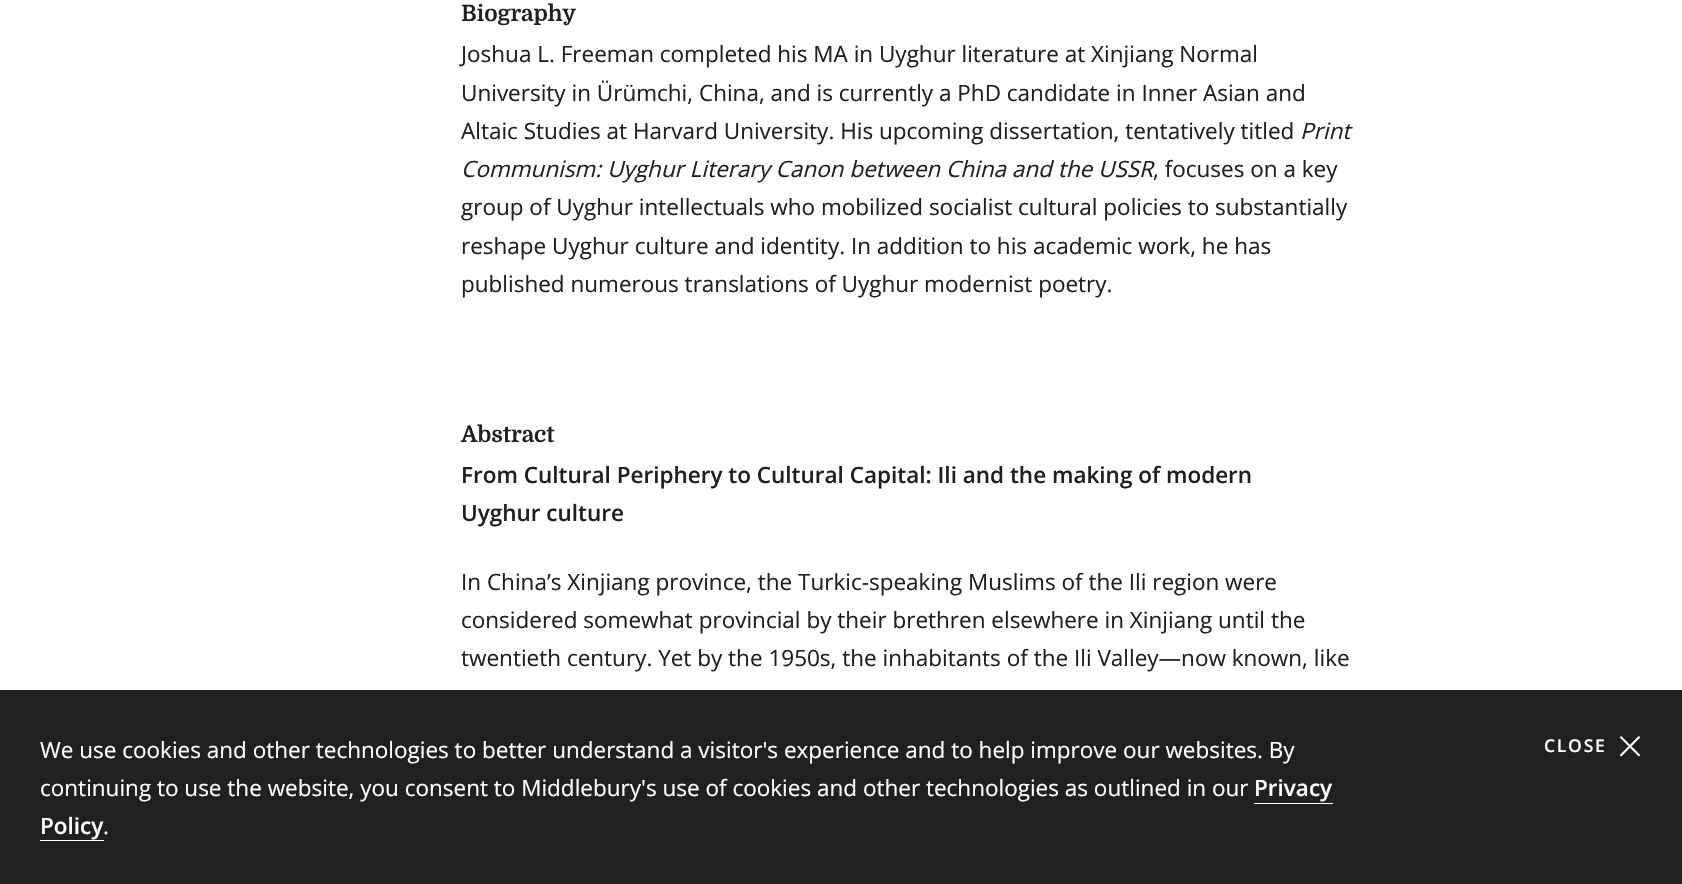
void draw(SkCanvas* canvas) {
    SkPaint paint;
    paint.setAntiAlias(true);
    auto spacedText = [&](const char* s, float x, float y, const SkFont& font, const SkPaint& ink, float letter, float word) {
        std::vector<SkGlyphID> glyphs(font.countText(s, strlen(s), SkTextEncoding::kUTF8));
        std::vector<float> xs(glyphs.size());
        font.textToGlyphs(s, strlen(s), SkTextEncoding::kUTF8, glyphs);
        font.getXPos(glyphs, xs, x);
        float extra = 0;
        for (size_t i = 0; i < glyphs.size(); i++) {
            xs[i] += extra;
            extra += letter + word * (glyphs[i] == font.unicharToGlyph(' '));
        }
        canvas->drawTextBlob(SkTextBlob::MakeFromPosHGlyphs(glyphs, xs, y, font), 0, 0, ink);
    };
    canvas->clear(0xFFFFFFFF);
    SkFont font1(fontMgr->matchFamilyStyle("Domine", SkFontStyle::Bold()), 22.5f);
    font1.setSubpixel(true);
    paint.setColor(0xFF202020);
    canvas->drawString("Biography", 461, 21, font1, paint);
    SkFont font2(fontMgr->matchFamilyStyle("Open Sans", SkFontStyle::Normal()), 22.5f);
    font2.setSubpixel(true);
    canvas->drawString("Joshua L. Freeman completed his MA in Uyghur literature at Xinjiang Normal", 461, 62, font2, paint);
    canvas->drawString("University in Ürümchi, China, and is currently a PhD candidate in Inner Asian and", 461, 101, font2, paint);
    canvas->drawString("Altaic Studies at Harvard University. His upcoming dissertation, tentatively titled", 461, 139, font2, paint);
    SkFont font3(fontMgr->matchFamilyStyle("Open Sans", SkFontStyle::Italic()), 22.5f);
    font3.setSubpixel(true);
    canvas->drawString("Print", 1300, 139, font3, paint);
    canvas->drawString("Communism: Uyghur Literary Canon between China and the USSR", 461, 177, font3, paint);
    canvas->drawString(", focuses on a key", 1153, 177, font2, paint);
    canvas->drawString("group of Uyghur intellectuals who mobilized socialist cultural policies to substantially", 461, 215, font2, paint);
    canvas->drawString("reshape Uyghur culture and identity. In addition to his academic work, he has", 461, 254, font2, paint);
    canvas->drawString("published numerous translations of Uyghur modernist poetry.", 461, 292, font2, paint);
    canvas->drawString("Abstract", 461, 442, font1, paint);
    SkFont font4(fontMgr->matchFamilyStyle("Open Sans", SkFontStyle(600, SkFontStyle::kNormal_Width, SkFontStyle::kUpright_Slant)), 22.5f);
    font4.setSubpixel(true);
    canvas->drawString("From Cultural Periphery to Cultural Capital: Ili and the making of modern", 461, 483, font4, paint);
    canvas->drawString("Uyghur culture", 461, 521, font4, paint);
    canvas->drawString("In China’s Xinjiang province, the Turkic-speaking Muslims of the Ili region were", 461, 590, font2, paint);
    canvas->drawString("considered somewhat provincial by their brethren elsewhere in Xinjiang until the", 461, 628, font2, paint);
    canvas->drawString("twentieth century. Yet by the 1950s, the inhabitants of the Ili Valley—now known, like", 461, 666, font2, paint);
    canvas->drawRect(SkRect::MakeXYWH(0, 690, 1682, 194), paint);
    paint.setColor(0xFFFFFFFF);
    canvas->drawString("We use cookies and other technologies to better understand a visitor's experience and to help improve our websites. By", 40, 758, font2, paint);
    canvas->drawString("continuing to use the website, you consent to Middlebury's use of cookies and other technologies as outlined in our", 40, 796, font2, paint);
    canvas->drawString("Privacy", 1254, 796, font4, paint);
    canvas->drawRect(SkRect::MakeXYWH(1254, 803, 79, 1), paint);
    canvas->drawString("Policy", 40, 834, font4, paint);
    canvas->drawRect(SkRect::MakeXYWH(40, 840, 64, 1), paint);
    canvas->drawString(".", 103, 834, font2, paint);
    SkFont font5(fontMgr->matchFamilyStyle("Open Sans", SkFontStyle(600, SkFontStyle::kNormal_Width, SkFontStyle::kUpright_Slant)), 17.5f);
    font5.setSubpixel(true);
    spacedText("CLOSE", 1544, 752, font5, paint, 1.75f, 0);
    canvas->drawImageRect(SkImages::DeferredFromEncodedData(SkData::MakeFromFileName("img1.png")), SkRect::MakeXYWH(1619, 736, 22, 21), SkSamplingOptions());
}
